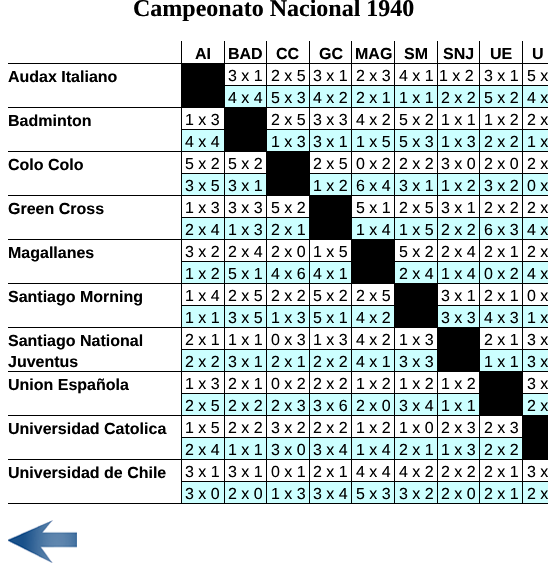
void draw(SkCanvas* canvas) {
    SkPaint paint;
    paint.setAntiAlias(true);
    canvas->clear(0xFFFFFFFF);
    SkFont font1(fontMgr->matchFamilyStyle("Liberation Serif", SkFontStyle::Bold()), 24);
    font1.setSubpixel(true);
    paint.setColor(0xFF000000);
    canvas->drawString("Campeonato Nacional 1940", 133, 16, font1, paint);
    canvas->drawRect(SkRect::MakeXYWH(522, 393, 26, 1), paint);
    canvas->drawRect(SkRect::MakeXYWH(522, 371, 1, 23), paint);
    canvas->drawRect(SkRect::MakeXYWH(522, 371, 26, 1), paint);
    canvas->drawRect(SkRect::MakeXYWH(522, 349, 1, 23), paint);
    canvas->drawRect(SkRect::MakeXYWH(522, 349, 26, 1), paint);
    canvas->drawRect(SkRect::MakeXYWH(522, 327, 1, 23), paint);
    canvas->drawRect(SkRect::MakeXYWH(522, 327, 26, 1), paint);
    canvas->drawRect(SkRect::MakeXYWH(522, 305, 1, 23), paint);
    canvas->drawRect(SkRect::MakeXYWH(522, 305, 26, 1), paint);
    canvas->drawRect(SkRect::MakeXYWH(522, 283, 1, 23), paint);
    canvas->drawRect(SkRect::MakeXYWH(522, 283, 26, 1), paint);
    canvas->drawRect(SkRect::MakeXYWH(522, 261, 1, 23), paint);
    canvas->drawRect(SkRect::MakeXYWH(522, 261, 26, 1), paint);
    canvas->drawRect(SkRect::MakeXYWH(522, 239, 1, 23), paint);
    canvas->drawRect(SkRect::MakeXYWH(522, 239, 26, 1), paint);
    canvas->drawRect(SkRect::MakeXYWH(522, 217, 1, 23), paint);
    canvas->drawRect(SkRect::MakeXYWH(522, 217, 26, 1), paint);
    canvas->drawRect(SkRect::MakeXYWH(522, 195, 1, 23), paint);
    canvas->drawRect(SkRect::MakeXYWH(522, 195, 26, 1), paint);
    canvas->drawRect(SkRect::MakeXYWH(522, 173, 1, 23), paint);
    canvas->drawRect(SkRect::MakeXYWH(522, 173, 26, 1), paint);
    canvas->drawRect(SkRect::MakeXYWH(522, 151, 1, 23), paint);
    canvas->drawRect(SkRect::MakeXYWH(522, 151, 26, 1), paint);
    canvas->drawRect(SkRect::MakeXYWH(522, 129, 1, 23), paint);
    canvas->drawRect(SkRect::MakeXYWH(522, 129, 26, 1), paint);
    canvas->drawRect(SkRect::MakeXYWH(522, 107, 1, 23), paint);
    canvas->drawRect(SkRect::MakeXYWH(522, 107, 26, 1), paint);
    canvas->drawRect(SkRect::MakeXYWH(522, 85, 1, 23), paint);
    canvas->drawRect(SkRect::MakeXYWH(522, 85, 26, 1), paint);
    canvas->drawRect(SkRect::MakeXYWH(522, 63, 1, 23), paint);
    canvas->drawRect(SkRect::MakeXYWH(522, 63, 26, 1), paint);
    canvas->drawRect(SkRect::MakeXYWH(522, 41, 1, 23), paint);
    canvas->drawRect(SkRect::MakeXYWH(479, 349, 44, 1), paint);
    canvas->drawRect(SkRect::MakeXYWH(479, 327, 1, 23), paint);
    canvas->drawRect(SkRect::MakeXYWH(479, 327, 44, 1), paint);
    canvas->drawRect(SkRect::MakeXYWH(479, 305, 1, 23), paint);
    canvas->drawRect(SkRect::MakeXYWH(479, 305, 44, 1), paint);
    canvas->drawRect(SkRect::MakeXYWH(479, 283, 1, 23), paint);
    canvas->drawRect(SkRect::MakeXYWH(479, 283, 44, 1), paint);
    canvas->drawRect(SkRect::MakeXYWH(479, 261, 1, 23), paint);
    canvas->drawRect(SkRect::MakeXYWH(479, 261, 44, 1), paint);
    canvas->drawRect(SkRect::MakeXYWH(479, 239, 1, 23), paint);
    canvas->drawRect(SkRect::MakeXYWH(479, 239, 44, 1), paint);
    canvas->drawRect(SkRect::MakeXYWH(479, 217, 1, 23), paint);
    canvas->drawRect(SkRect::MakeXYWH(479, 217, 44, 1), paint);
    canvas->drawRect(SkRect::MakeXYWH(479, 195, 1, 23), paint);
    canvas->drawRect(SkRect::MakeXYWH(479, 195, 44, 1), paint);
    canvas->drawRect(SkRect::MakeXYWH(479, 173, 1, 23), paint);
    canvas->drawRect(SkRect::MakeXYWH(479, 173, 44, 1), paint);
    canvas->drawRect(SkRect::MakeXYWH(479, 151, 1, 23), paint);
    canvas->drawRect(SkRect::MakeXYWH(479, 151, 44, 1), paint);
    canvas->drawRect(SkRect::MakeXYWH(479, 129, 1, 23), paint);
    canvas->drawRect(SkRect::MakeXYWH(479, 129, 44, 1), paint);
    canvas->drawRect(SkRect::MakeXYWH(479, 107, 1, 23), paint);
    canvas->drawRect(SkRect::MakeXYWH(479, 107, 44, 1), paint);
    canvas->drawRect(SkRect::MakeXYWH(479, 85, 1, 23), paint);
    canvas->drawRect(SkRect::MakeXYWH(479, 85, 44, 1), paint);
    canvas->drawRect(SkRect::MakeXYWH(479, 63, 1, 23), paint);
    canvas->drawRect(SkRect::MakeXYWH(479, 63, 44, 1), paint);
    canvas->drawRect(SkRect::MakeXYWH(479, 41, 1, 23), paint);
    canvas->drawRect(SkRect::MakeXYWH(437, 327, 1, 23), paint);
    canvas->drawRect(SkRect::MakeXYWH(437, 327, 43, 1), paint);
    canvas->drawRect(SkRect::MakeXYWH(437, 305, 1, 23), paint);
    canvas->drawRect(SkRect::MakeXYWH(437, 305, 43, 1), paint);
    canvas->drawRect(SkRect::MakeXYWH(437, 283, 1, 23), paint);
    canvas->drawRect(SkRect::MakeXYWH(437, 283, 43, 1), paint);
    canvas->drawRect(SkRect::MakeXYWH(437, 261, 1, 23), paint);
    canvas->drawRect(SkRect::MakeXYWH(437, 261, 43, 1), paint);
    canvas->drawRect(SkRect::MakeXYWH(437, 239, 1, 23), paint);
    canvas->drawRect(SkRect::MakeXYWH(437, 239, 43, 1), paint);
    canvas->drawRect(SkRect::MakeXYWH(437, 217, 1, 23), paint);
    canvas->drawRect(SkRect::MakeXYWH(437, 217, 43, 1), paint);
    canvas->drawRect(SkRect::MakeXYWH(437, 195, 1, 23), paint);
    canvas->drawRect(SkRect::MakeXYWH(437, 195, 43, 1), paint);
    canvas->drawRect(SkRect::MakeXYWH(437, 173, 1, 23), paint);
    canvas->drawRect(SkRect::MakeXYWH(437, 173, 43, 1), paint);
    canvas->drawRect(SkRect::MakeXYWH(437, 151, 1, 23), paint);
    canvas->drawRect(SkRect::MakeXYWH(437, 151, 43, 1), paint);
    canvas->drawRect(SkRect::MakeXYWH(437, 129, 1, 23), paint);
    canvas->drawRect(SkRect::MakeXYWH(437, 129, 43, 1), paint);
    canvas->drawRect(SkRect::MakeXYWH(437, 107, 1, 23), paint);
    canvas->drawRect(SkRect::MakeXYWH(437, 107, 43, 1), paint);
    canvas->drawRect(SkRect::MakeXYWH(437, 85, 1, 23), paint);
    canvas->drawRect(SkRect::MakeXYWH(437, 85, 43, 1), paint);
    canvas->drawRect(SkRect::MakeXYWH(437, 63, 1, 23), paint);
    canvas->drawRect(SkRect::MakeXYWH(437, 63, 43, 1), paint);
    canvas->drawRect(SkRect::MakeXYWH(437, 41, 1, 23), paint);
    canvas->drawRect(SkRect::MakeXYWH(394, 261, 44, 1), paint);
    canvas->drawRect(SkRect::MakeXYWH(394, 239, 1, 23), paint);
    canvas->drawRect(SkRect::MakeXYWH(394, 239, 44, 1), paint);
    canvas->drawRect(SkRect::MakeXYWH(394, 217, 1, 23), paint);
    canvas->drawRect(SkRect::MakeXYWH(394, 217, 44, 1), paint);
    canvas->drawRect(SkRect::MakeXYWH(394, 195, 1, 23), paint);
    canvas->drawRect(SkRect::MakeXYWH(394, 195, 44, 1), paint);
    canvas->drawRect(SkRect::MakeXYWH(394, 173, 1, 23), paint);
    canvas->drawRect(SkRect::MakeXYWH(394, 173, 44, 1), paint);
    canvas->drawRect(SkRect::MakeXYWH(394, 151, 1, 23), paint);
    canvas->drawRect(SkRect::MakeXYWH(394, 151, 44, 1), paint);
    canvas->drawRect(SkRect::MakeXYWH(394, 129, 1, 23), paint);
    canvas->drawRect(SkRect::MakeXYWH(394, 129, 44, 1), paint);
    canvas->drawRect(SkRect::MakeXYWH(394, 107, 1, 23), paint);
    canvas->drawRect(SkRect::MakeXYWH(394, 107, 44, 1), paint);
    canvas->drawRect(SkRect::MakeXYWH(394, 85, 1, 23), paint);
    canvas->drawRect(SkRect::MakeXYWH(394, 85, 44, 1), paint);
    canvas->drawRect(SkRect::MakeXYWH(394, 63, 1, 23), paint);
    canvas->drawRect(SkRect::MakeXYWH(394, 63, 44, 1), paint);
    canvas->drawRect(SkRect::MakeXYWH(394, 41, 1, 23), paint);
    canvas->drawRect(SkRect::MakeXYWH(351, 217, 44, 1), paint);
    canvas->drawRect(SkRect::MakeXYWH(351, 195, 1, 23), paint);
    canvas->drawRect(SkRect::MakeXYWH(351, 195, 44, 1), paint);
    canvas->drawRect(SkRect::MakeXYWH(351, 173, 1, 23), paint);
    canvas->drawRect(SkRect::MakeXYWH(351, 173, 44, 1), paint);
    canvas->drawRect(SkRect::MakeXYWH(351, 151, 1, 23), paint);
    canvas->drawRect(SkRect::MakeXYWH(351, 151, 44, 1), paint);
    canvas->drawRect(SkRect::MakeXYWH(351, 129, 1, 23), paint);
    canvas->drawRect(SkRect::MakeXYWH(351, 129, 44, 1), paint);
    canvas->drawRect(SkRect::MakeXYWH(351, 107, 1, 23), paint);
    canvas->drawRect(SkRect::MakeXYWH(351, 107, 44, 1), paint);
    canvas->drawRect(SkRect::MakeXYWH(351, 85, 1, 23), paint);
    canvas->drawRect(SkRect::MakeXYWH(351, 85, 44, 1), paint);
    canvas->drawRect(SkRect::MakeXYWH(351, 63, 1, 23), paint);
    canvas->drawRect(SkRect::MakeXYWH(351, 63, 44, 1), paint);
    canvas->drawRect(SkRect::MakeXYWH(351, 41, 1, 23), paint);
    canvas->drawRect(SkRect::MakeXYWH(309, 195, 1, 23), paint);
    canvas->drawRect(SkRect::MakeXYWH(309, 195, 43, 1), paint);
    canvas->drawRect(SkRect::MakeXYWH(309, 173, 1, 23), paint);
    canvas->drawRect(SkRect::MakeXYWH(309, 173, 43, 1), paint);
    canvas->drawRect(SkRect::MakeXYWH(309, 151, 1, 23), paint);
    canvas->drawRect(SkRect::MakeXYWH(309, 151, 43, 1), paint);
    canvas->drawRect(SkRect::MakeXYWH(309, 129, 1, 23), paint);
    canvas->drawRect(SkRect::MakeXYWH(309, 129, 43, 1), paint);
    canvas->drawRect(SkRect::MakeXYWH(309, 107, 1, 23), paint);
    canvas->drawRect(SkRect::MakeXYWH(309, 107, 43, 1), paint);
    canvas->drawRect(SkRect::MakeXYWH(309, 85, 1, 23), paint);
    canvas->drawRect(SkRect::MakeXYWH(309, 85, 43, 1), paint);
    canvas->drawRect(SkRect::MakeXYWH(309, 63, 1, 23), paint);
    canvas->drawRect(SkRect::MakeXYWH(309, 63, 43, 1), paint);
    canvas->drawRect(SkRect::MakeXYWH(309, 41, 1, 23), paint);
    canvas->drawRect(SkRect::MakeXYWH(266, 129, 44, 1), paint);
    canvas->drawRect(SkRect::MakeXYWH(266, 107, 1, 23), paint);
    canvas->drawRect(SkRect::MakeXYWH(266, 107, 44, 1), paint);
    canvas->drawRect(SkRect::MakeXYWH(266, 85, 1, 23), paint);
    canvas->drawRect(SkRect::MakeXYWH(266, 85, 44, 1), paint);
    canvas->drawRect(SkRect::MakeXYWH(266, 63, 1, 23), paint);
    canvas->drawRect(SkRect::MakeXYWH(266, 63, 44, 1), paint);
    canvas->drawRect(SkRect::MakeXYWH(266, 41, 1, 23), paint);
    canvas->drawRect(SkRect::MakeXYWH(224, 107, 1, 23), paint);
    canvas->drawRect(SkRect::MakeXYWH(224, 107, 43, 1), paint);
    canvas->drawRect(SkRect::MakeXYWH(224, 85, 1, 23), paint);
    canvas->drawRect(SkRect::MakeXYWH(224, 85, 43, 1), paint);
    canvas->drawRect(SkRect::MakeXYWH(224, 63, 1, 23), paint);
    canvas->drawRect(SkRect::MakeXYWH(224, 63, 43, 1), paint);
    canvas->drawRect(SkRect::MakeXYWH(224, 41, 1, 23), paint);
    canvas->drawRect(SkRect::MakeXYWH(8, 63, 174, 1), paint);
    canvas->drawRect(SkRect::MakeXYWH(181, 63, 44, 1), paint);
    canvas->drawRect(SkRect::MakeXYWH(181, 41, 1, 23), paint);
    SkFont font2(fontMgr->matchFamilyStyle("Liberation Sans", SkFontStyle::Bold()), 16);
    font2.setSubpixel(true);
    canvas->drawString("AI", 195, 59, font2, paint);
    canvas->drawString("BAD", 228, 59, font2, paint);
    canvas->drawString("CC", 276, 59, font2, paint);
    canvas->drawString("GC", 319, 59, font2, paint);
    canvas->drawString("MAG", 355, 59, font2, paint);
    canvas->drawString("SM", 404, 59, font2, paint);
    canvas->drawString("SNJ", 443, 59, font2, paint);
    canvas->drawString("UE", 490, 59, font2, paint);
    canvas->drawString("U", 532, 59, font2, paint);
    canvas->drawString("Audax Italiano", 8, 82, font2, paint);
    canvas->drawRect(SkRect::MakeXYWH(181, 64, 43, 44), paint);
    SkFont font3(fontMgr->matchFamilyStyle("Liberation Sans", SkFontStyle::Normal()), 16);
    font3.setSubpixel(true);
    canvas->drawString("3 x 1", 228, 81, font3, paint);
    canvas->drawString("2 x 5", 271, 81, font3, paint);
    canvas->drawString("3 x 1", 313, 81, font3, paint);
    canvas->drawString("2 x 3", 356, 81, font3, paint);
    canvas->drawString("4 x 1", 399, 81, font3, paint);
    canvas->drawString("1 x 2", 439, 81, font3, paint);
    canvas->drawString("3 x 1", 484, 81, font3, paint);
    canvas->drawString("5 x", 527, 81, font3, paint);
    paint.setColor(0xFFCCFFFF);
    canvas->drawRect(SkRect::MakeXYWH(225, 86, 41, 21), paint);
    paint.setColor(0xFF000000);
    canvas->drawString("4 x 4", 228, 103, font3, paint);
    paint.setColor(0xFFCCFFFF);
    canvas->drawRect(SkRect::MakeXYWH(267, 86, 42, 21), paint);
    paint.setColor(0xFF000000);
    canvas->drawString("5 x 3", 271, 103, font3, paint);
    paint.setColor(0xFFCCFFFF);
    canvas->drawRect(SkRect::MakeXYWH(310, 86, 41, 21), paint);
    paint.setColor(0xFF000000);
    canvas->drawString("4 x 2", 313, 103, font3, paint);
    paint.setColor(0xFFCCFFFF);
    canvas->drawRect(SkRect::MakeXYWH(352, 86, 42, 21), paint);
    paint.setColor(0xFF000000);
    canvas->drawString("2 x 1", 356, 103, font3, paint);
    paint.setColor(0xFFCCFFFF);
    canvas->drawRect(SkRect::MakeXYWH(395, 86, 42, 21), paint);
    paint.setColor(0xFF000000);
    canvas->drawString("1 x 1", 399, 103, font3, paint);
    paint.setColor(0xFFCCFFFF);
    canvas->drawRect(SkRect::MakeXYWH(438, 86, 41, 21), paint);
    paint.setColor(0xFF000000);
    canvas->drawString("2 x 2", 441, 103, font3, paint);
    paint.setColor(0xFFCCFFFF);
    canvas->drawRect(SkRect::MakeXYWH(480, 86, 42, 21), paint);
    paint.setColor(0xFF000000);
    canvas->drawString("5 x 2", 484, 103, font3, paint);
    paint.setColor(0xFFCCFFFF);
    canvas->drawRect(SkRect::MakeXYWH(523, 86, 25, 21), paint);
    paint.setColor(0xFF000000);
    canvas->drawString("4 x", 527, 103, font3, paint);
    canvas->drawRect(SkRect::MakeXYWH(8, 107, 174, 1), paint);
    canvas->drawRect(SkRect::MakeXYWH(224, 130, 43, 22), paint);
    canvas->drawRect(SkRect::MakeXYWH(8, 151, 174, 1), paint);
    canvas->drawRect(SkRect::MakeXYWH(309, 218, 43, 22), paint);
    canvas->drawRect(SkRect::MakeXYWH(352, 262, 43, 22), paint);
    canvas->drawRect(SkRect::MakeXYWH(437, 350, 43, 22), paint);
    canvas->drawRect(SkRect::MakeXYWH(480, 394, 43, 22), paint);
    canvas->drawRect(SkRect::MakeXYWH(522, 503, 26, 1), paint);
    canvas->drawRect(SkRect::MakeXYWH(522, 481, 1, 23), paint);
    canvas->drawRect(SkRect::MakeXYWH(522, 481, 26, 1), paint);
    canvas->drawRect(SkRect::MakeXYWH(522, 415, 1, 67), paint);
    canvas->drawRect(SkRect::MakeXYWH(479, 503, 44, 1), paint);
    canvas->drawRect(SkRect::MakeXYWH(479, 481, 1, 23), paint);
    canvas->drawRect(SkRect::MakeXYWH(479, 481, 44, 1), paint);
    canvas->drawRect(SkRect::MakeXYWH(479, 459, 1, 23), paint);
    canvas->drawRect(SkRect::MakeXYWH(479, 459, 44, 1), paint);
    canvas->drawRect(SkRect::MakeXYWH(479, 437, 1, 23), paint);
    canvas->drawRect(SkRect::MakeXYWH(479, 437, 44, 1), paint);
    canvas->drawRect(SkRect::MakeXYWH(479, 371, 1, 67), paint);
    canvas->drawRect(SkRect::MakeXYWH(437, 503, 43, 1), paint);
    canvas->drawRect(SkRect::MakeXYWH(437, 481, 1, 23), paint);
    canvas->drawRect(SkRect::MakeXYWH(437, 481, 43, 1), paint);
    canvas->drawRect(SkRect::MakeXYWH(437, 459, 1, 23), paint);
    canvas->drawRect(SkRect::MakeXYWH(437, 459, 43, 1), paint);
    canvas->drawRect(SkRect::MakeXYWH(437, 437, 1, 23), paint);
    canvas->drawRect(SkRect::MakeXYWH(437, 437, 43, 1), paint);
    canvas->drawRect(SkRect::MakeXYWH(437, 415, 1, 23), paint);
    canvas->drawRect(SkRect::MakeXYWH(437, 415, 43, 1), paint);
    canvas->drawRect(SkRect::MakeXYWH(437, 393, 1, 23), paint);
    canvas->drawRect(SkRect::MakeXYWH(437, 393, 43, 1), paint);
    canvas->drawRect(SkRect::MakeXYWH(437, 371, 1, 23), paint);
    canvas->drawRect(SkRect::MakeXYWH(394, 503, 44, 1), paint);
    canvas->drawRect(SkRect::MakeXYWH(394, 481, 1, 23), paint);
    canvas->drawRect(SkRect::MakeXYWH(394, 481, 44, 1), paint);
    canvas->drawRect(SkRect::MakeXYWH(394, 459, 1, 23), paint);
    canvas->drawRect(SkRect::MakeXYWH(394, 459, 44, 1), paint);
    canvas->drawRect(SkRect::MakeXYWH(394, 437, 1, 23), paint);
    canvas->drawRect(SkRect::MakeXYWH(394, 437, 44, 1), paint);
    canvas->drawRect(SkRect::MakeXYWH(394, 415, 1, 23), paint);
    canvas->drawRect(SkRect::MakeXYWH(394, 415, 44, 1), paint);
    canvas->drawRect(SkRect::MakeXYWH(394, 393, 1, 23), paint);
    canvas->drawRect(SkRect::MakeXYWH(394, 393, 44, 1), paint);
    canvas->drawRect(SkRect::MakeXYWH(394, 371, 1, 23), paint);
    canvas->drawRect(SkRect::MakeXYWH(394, 371, 44, 1), paint);
    canvas->drawRect(SkRect::MakeXYWH(394, 349, 1, 23), paint);
    canvas->drawRect(SkRect::MakeXYWH(394, 349, 44, 1), paint);
    canvas->drawRect(SkRect::MakeXYWH(394, 283, 1, 67), paint);
    canvas->drawRect(SkRect::MakeXYWH(351, 503, 44, 1), paint);
    canvas->drawRect(SkRect::MakeXYWH(351, 481, 1, 23), paint);
    canvas->drawRect(SkRect::MakeXYWH(351, 481, 44, 1), paint);
    canvas->drawRect(SkRect::MakeXYWH(351, 459, 1, 23), paint);
    canvas->drawRect(SkRect::MakeXYWH(351, 459, 44, 1), paint);
    canvas->drawRect(SkRect::MakeXYWH(351, 437, 1, 23), paint);
    canvas->drawRect(SkRect::MakeXYWH(351, 437, 44, 1), paint);
    canvas->drawRect(SkRect::MakeXYWH(351, 415, 1, 23), paint);
    canvas->drawRect(SkRect::MakeXYWH(351, 415, 44, 1), paint);
    canvas->drawRect(SkRect::MakeXYWH(351, 393, 1, 23), paint);
    canvas->drawRect(SkRect::MakeXYWH(351, 393, 44, 1), paint);
    canvas->drawRect(SkRect::MakeXYWH(351, 371, 1, 23), paint);
    canvas->drawRect(SkRect::MakeXYWH(351, 371, 44, 1), paint);
    canvas->drawRect(SkRect::MakeXYWH(351, 349, 1, 23), paint);
    canvas->drawRect(SkRect::MakeXYWH(351, 349, 44, 1), paint);
    canvas->drawRect(SkRect::MakeXYWH(351, 327, 1, 23), paint);
    canvas->drawRect(SkRect::MakeXYWH(351, 327, 44, 1), paint);
    canvas->drawRect(SkRect::MakeXYWH(351, 305, 1, 23), paint);
    canvas->drawRect(SkRect::MakeXYWH(351, 305, 44, 1), paint);
    canvas->drawRect(SkRect::MakeXYWH(351, 239, 1, 67), paint);
    canvas->drawRect(SkRect::MakeXYWH(309, 503, 43, 1), paint);
    canvas->drawRect(SkRect::MakeXYWH(309, 481, 1, 23), paint);
    canvas->drawRect(SkRect::MakeXYWH(309, 481, 43, 1), paint);
    canvas->drawRect(SkRect::MakeXYWH(309, 459, 1, 23), paint);
    canvas->drawRect(SkRect::MakeXYWH(309, 459, 43, 1), paint);
    canvas->drawRect(SkRect::MakeXYWH(309, 437, 1, 23), paint);
    canvas->drawRect(SkRect::MakeXYWH(309, 437, 43, 1), paint);
    canvas->drawRect(SkRect::MakeXYWH(309, 415, 1, 23), paint);
    canvas->drawRect(SkRect::MakeXYWH(309, 415, 43, 1), paint);
    canvas->drawRect(SkRect::MakeXYWH(309, 393, 1, 23), paint);
    canvas->drawRect(SkRect::MakeXYWH(309, 393, 43, 1), paint);
    canvas->drawRect(SkRect::MakeXYWH(309, 371, 1, 23), paint);
    canvas->drawRect(SkRect::MakeXYWH(309, 371, 43, 1), paint);
    canvas->drawRect(SkRect::MakeXYWH(309, 349, 1, 23), paint);
    canvas->drawRect(SkRect::MakeXYWH(309, 349, 43, 1), paint);
    canvas->drawRect(SkRect::MakeXYWH(309, 327, 1, 23), paint);
    canvas->drawRect(SkRect::MakeXYWH(309, 327, 43, 1), paint);
    canvas->drawRect(SkRect::MakeXYWH(309, 305, 1, 23), paint);
    canvas->drawRect(SkRect::MakeXYWH(309, 305, 43, 1), paint);
    canvas->drawRect(SkRect::MakeXYWH(309, 283, 1, 23), paint);
    canvas->drawRect(SkRect::MakeXYWH(309, 283, 43, 1), paint);
    canvas->drawRect(SkRect::MakeXYWH(309, 261, 1, 23), paint);
    canvas->drawRect(SkRect::MakeXYWH(309, 261, 43, 1), paint);
    canvas->drawRect(SkRect::MakeXYWH(309, 239, 1, 23), paint);
    canvas->drawRect(SkRect::MakeXYWH(266, 503, 44, 1), paint);
    canvas->drawRect(SkRect::MakeXYWH(266, 481, 1, 23), paint);
    canvas->drawRect(SkRect::MakeXYWH(266, 481, 44, 1), paint);
    canvas->drawRect(SkRect::MakeXYWH(266, 459, 1, 23), paint);
    canvas->drawRect(SkRect::MakeXYWH(266, 459, 44, 1), paint);
    canvas->drawRect(SkRect::MakeXYWH(266, 437, 1, 23), paint);
    canvas->drawRect(SkRect::MakeXYWH(266, 437, 44, 1), paint);
    canvas->drawRect(SkRect::MakeXYWH(266, 415, 1, 23), paint);
    canvas->drawRect(SkRect::MakeXYWH(266, 415, 44, 1), paint);
    canvas->drawRect(SkRect::MakeXYWH(266, 393, 1, 23), paint);
    canvas->drawRect(SkRect::MakeXYWH(266, 393, 44, 1), paint);
    canvas->drawRect(SkRect::MakeXYWH(266, 371, 1, 23), paint);
    canvas->drawRect(SkRect::MakeXYWH(266, 371, 44, 1), paint);
    canvas->drawRect(SkRect::MakeXYWH(266, 349, 1, 23), paint);
    canvas->drawRect(SkRect::MakeXYWH(266, 349, 44, 1), paint);
    canvas->drawRect(SkRect::MakeXYWH(266, 327, 1, 23), paint);
    canvas->drawRect(SkRect::MakeXYWH(266, 327, 44, 1), paint);
    canvas->drawRect(SkRect::MakeXYWH(266, 305, 1, 23), paint);
    canvas->drawRect(SkRect::MakeXYWH(266, 305, 44, 1), paint);
    canvas->drawRect(SkRect::MakeXYWH(266, 283, 1, 23), paint);
    canvas->drawRect(SkRect::MakeXYWH(266, 283, 44, 1), paint);
    canvas->drawRect(SkRect::MakeXYWH(266, 261, 1, 23), paint);
    canvas->drawRect(SkRect::MakeXYWH(266, 261, 44, 1), paint);
    canvas->drawRect(SkRect::MakeXYWH(266, 239, 1, 23), paint);
    canvas->drawRect(SkRect::MakeXYWH(266, 239, 44, 1), paint);
    canvas->drawRect(SkRect::MakeXYWH(266, 217, 1, 23), paint);
    canvas->drawRect(SkRect::MakeXYWH(266, 217, 44, 1), paint);
    canvas->drawRect(SkRect::MakeXYWH(266, 151, 1, 67), paint);
    canvas->drawRect(SkRect::MakeXYWH(224, 503, 43, 1), paint);
    canvas->drawRect(SkRect::MakeXYWH(224, 481, 1, 23), paint);
    canvas->drawRect(SkRect::MakeXYWH(224, 481, 43, 1), paint);
    canvas->drawRect(SkRect::MakeXYWH(224, 459, 1, 23), paint);
    canvas->drawRect(SkRect::MakeXYWH(224, 459, 43, 1), paint);
    canvas->drawRect(SkRect::MakeXYWH(224, 437, 1, 23), paint);
    canvas->drawRect(SkRect::MakeXYWH(224, 437, 43, 1), paint);
    canvas->drawRect(SkRect::MakeXYWH(224, 415, 1, 23), paint);
    canvas->drawRect(SkRect::MakeXYWH(224, 415, 43, 1), paint);
    canvas->drawRect(SkRect::MakeXYWH(224, 393, 1, 23), paint);
    canvas->drawRect(SkRect::MakeXYWH(224, 393, 43, 1), paint);
    canvas->drawRect(SkRect::MakeXYWH(224, 371, 1, 23), paint);
    canvas->drawRect(SkRect::MakeXYWH(224, 371, 43, 1), paint);
    canvas->drawRect(SkRect::MakeXYWH(224, 349, 1, 23), paint);
    canvas->drawRect(SkRect::MakeXYWH(224, 349, 43, 1), paint);
    canvas->drawRect(SkRect::MakeXYWH(224, 327, 1, 23), paint);
    canvas->drawRect(SkRect::MakeXYWH(224, 327, 43, 1), paint);
    canvas->drawRect(SkRect::MakeXYWH(224, 305, 1, 23), paint);
    canvas->drawRect(SkRect::MakeXYWH(224, 305, 43, 1), paint);
    canvas->drawRect(SkRect::MakeXYWH(224, 283, 1, 23), paint);
    canvas->drawRect(SkRect::MakeXYWH(224, 283, 43, 1), paint);
    canvas->drawRect(SkRect::MakeXYWH(224, 261, 1, 23), paint);
    canvas->drawRect(SkRect::MakeXYWH(224, 261, 43, 1), paint);
    canvas->drawRect(SkRect::MakeXYWH(224, 239, 1, 23), paint);
    canvas->drawRect(SkRect::MakeXYWH(224, 239, 43, 1), paint);
    canvas->drawRect(SkRect::MakeXYWH(224, 217, 1, 23), paint);
    canvas->drawRect(SkRect::MakeXYWH(224, 217, 43, 1), paint);
    canvas->drawRect(SkRect::MakeXYWH(224, 195, 1, 23), paint);
    canvas->drawRect(SkRect::MakeXYWH(224, 195, 43, 1), paint);
    canvas->drawRect(SkRect::MakeXYWH(224, 173, 1, 23), paint);
    canvas->drawRect(SkRect::MakeXYWH(224, 173, 43, 1), paint);
    canvas->drawRect(SkRect::MakeXYWH(224, 151, 1, 23), paint);
    canvas->drawRect(SkRect::MakeXYWH(8, 195, 174, 1), paint);
    canvas->drawRect(SkRect::MakeXYWH(8, 283, 174, 1), paint);
    canvas->drawRect(SkRect::MakeXYWH(8, 327, 174, 1), paint);
    canvas->drawRect(SkRect::MakeXYWH(8, 459, 174, 1), paint);
    canvas->drawRect(SkRect::MakeXYWH(181, 503, 44, 1), paint);
    canvas->drawRect(SkRect::MakeXYWH(181, 481, 1, 23), paint);
    canvas->drawRect(SkRect::MakeXYWH(181, 481, 44, 1), paint);
    canvas->drawRect(SkRect::MakeXYWH(181, 459, 1, 23), paint);
    canvas->drawRect(SkRect::MakeXYWH(181, 459, 44, 1), paint);
    canvas->drawRect(SkRect::MakeXYWH(181, 437, 1, 23), paint);
    canvas->drawRect(SkRect::MakeXYWH(181, 437, 44, 1), paint);
    canvas->drawRect(SkRect::MakeXYWH(181, 415, 1, 23), paint);
    canvas->drawRect(SkRect::MakeXYWH(181, 415, 44, 1), paint);
    canvas->drawRect(SkRect::MakeXYWH(181, 393, 1, 23), paint);
    canvas->drawRect(SkRect::MakeXYWH(181, 393, 44, 1), paint);
    canvas->drawRect(SkRect::MakeXYWH(181, 371, 1, 23), paint);
    canvas->drawRect(SkRect::MakeXYWH(181, 371, 44, 1), paint);
    canvas->drawRect(SkRect::MakeXYWH(181, 349, 1, 23), paint);
    canvas->drawRect(SkRect::MakeXYWH(181, 349, 44, 1), paint);
    canvas->drawRect(SkRect::MakeXYWH(181, 327, 1, 23), paint);
    canvas->drawRect(SkRect::MakeXYWH(181, 327, 44, 1), paint);
    canvas->drawRect(SkRect::MakeXYWH(181, 305, 1, 23), paint);
    canvas->drawRect(SkRect::MakeXYWH(181, 305, 44, 1), paint);
    canvas->drawRect(SkRect::MakeXYWH(181, 283, 1, 23), paint);
    canvas->drawRect(SkRect::MakeXYWH(181, 283, 44, 1), paint);
    canvas->drawRect(SkRect::MakeXYWH(181, 261, 1, 23), paint);
    canvas->drawRect(SkRect::MakeXYWH(181, 261, 44, 1), paint);
    canvas->drawRect(SkRect::MakeXYWH(181, 239, 1, 23), paint);
    canvas->drawRect(SkRect::MakeXYWH(181, 239, 44, 1), paint);
    canvas->drawRect(SkRect::MakeXYWH(181, 217, 1, 23), paint);
    canvas->drawRect(SkRect::MakeXYWH(181, 217, 44, 1), paint);
    canvas->drawRect(SkRect::MakeXYWH(181, 195, 1, 23), paint);
    canvas->drawRect(SkRect::MakeXYWH(181, 195, 44, 1), paint);
    canvas->drawRect(SkRect::MakeXYWH(181, 173, 1, 23), paint);
    canvas->drawRect(SkRect::MakeXYWH(181, 173, 44, 1), paint);
    canvas->drawRect(SkRect::MakeXYWH(181, 151, 1, 23), paint);
    canvas->drawRect(SkRect::MakeXYWH(181, 151, 44, 1), paint);
    canvas->drawRect(SkRect::MakeXYWH(181, 129, 1, 23), paint);
    canvas->drawRect(SkRect::MakeXYWH(181, 129, 44, 1), paint);
    canvas->drawRect(SkRect::MakeXYWH(181, 107, 1, 23), paint);
    canvas->drawString("Badminton", 8, 126, font2, paint);
    canvas->drawString("1 x 3", 185, 125, font3, paint);
    canvas->drawRect(SkRect::MakeXYWH(225, 108, 41, 22), paint);
    canvas->drawString("2 x 5", 271, 125, font3, paint);
    canvas->drawString("3 x 3", 313, 125, font3, paint);
    canvas->drawString("4 x 2", 356, 125, font3, paint);
    canvas->drawString("5 x 2", 399, 125, font3, paint);
    canvas->drawString("1 x 1", 441, 125, font3, paint);
    canvas->drawString("1 x 2", 484, 125, font3, paint);
    canvas->drawString("2 x", 527, 125, font3, paint);
    paint.setColor(0xFFCCFFFF);
    canvas->drawRect(SkRect::MakeXYWH(182, 130, 42, 21), paint);
    paint.setColor(0xFF000000);
    canvas->drawString("4 x 4", 185, 147, font3, paint);
    paint.setColor(0xFFCCFFFF);
    canvas->drawRect(SkRect::MakeXYWH(267, 130, 42, 21), paint);
    paint.setColor(0xFF000000);
    canvas->drawRect(SkRect::MakeXYWH(266, 151, 44, 1), paint);
    canvas->drawString("1 x 3", 271, 147, font3, paint);
    paint.setColor(0xFFCCFFFF);
    canvas->drawRect(SkRect::MakeXYWH(310, 130, 41, 21), paint);
    paint.setColor(0xFF000000);
    canvas->drawString("3 x 1", 313, 147, font3, paint);
    paint.setColor(0xFFCCFFFF);
    canvas->drawRect(SkRect::MakeXYWH(352, 130, 42, 21), paint);
    paint.setColor(0xFF000000);
    canvas->drawString("1 x 5", 356, 147, font3, paint);
    paint.setColor(0xFFCCFFFF);
    canvas->drawRect(SkRect::MakeXYWH(395, 130, 42, 21), paint);
    paint.setColor(0xFF000000);
    canvas->drawString("5 x 3", 399, 147, font3, paint);
    paint.setColor(0xFFCCFFFF);
    canvas->drawRect(SkRect::MakeXYWH(438, 130, 41, 21), paint);
    paint.setColor(0xFF000000);
    canvas->drawString("1 x 3", 441, 147, font3, paint);
    paint.setColor(0xFFCCFFFF);
    canvas->drawRect(SkRect::MakeXYWH(480, 130, 42, 21), paint);
    paint.setColor(0xFF000000);
    canvas->drawString("2 x 2", 484, 147, font3, paint);
    paint.setColor(0xFFCCFFFF);
    canvas->drawRect(SkRect::MakeXYWH(523, 130, 25, 21), paint);
    paint.setColor(0xFF000000);
    canvas->drawString("1 x", 527, 147, font3, paint);
    canvas->drawString("Colo Colo", 8, 170, font2, paint);
    canvas->drawString("5 x 2", 185, 169, font3, paint);
    canvas->drawString("5 x 2", 228, 169, font3, paint);
    canvas->drawRect(SkRect::MakeXYWH(267, 152, 42, 44), paint);
    canvas->drawString("2 x 5", 313, 169, font3, paint);
    canvas->drawString("0 x 2", 356, 169, font3, paint);
    canvas->drawString("2 x 2", 399, 169, font3, paint);
    canvas->drawString("3 x 0", 441, 169, font3, paint);
    canvas->drawString("2 x 0", 484, 169, font3, paint);
    canvas->drawString("2 x", 527, 169, font3, paint);
    paint.setColor(0xFFCCFFFF);
    canvas->drawRect(SkRect::MakeXYWH(182, 174, 42, 21), paint);
    paint.setColor(0xFF000000);
    canvas->drawString("3 x 5", 185, 191, font3, paint);
    paint.setColor(0xFFCCFFFF);
    canvas->drawRect(SkRect::MakeXYWH(225, 174, 41, 21), paint);
    paint.setColor(0xFF000000);
    canvas->drawString("3 x 1", 228, 191, font3, paint);
    paint.setColor(0xFFCCFFFF);
    canvas->drawRect(SkRect::MakeXYWH(310, 174, 41, 21), paint);
    paint.setColor(0xFF000000);
    canvas->drawString("1 x 2", 313, 191, font3, paint);
    paint.setColor(0xFFCCFFFF);
    canvas->drawRect(SkRect::MakeXYWH(352, 174, 42, 21), paint);
    paint.setColor(0xFF000000);
    canvas->drawString("6 x 4", 356, 191, font3, paint);
    paint.setColor(0xFFCCFFFF);
    canvas->drawRect(SkRect::MakeXYWH(395, 174, 42, 21), paint);
    paint.setColor(0xFF000000);
    canvas->drawString("3 x 1", 399, 191, font3, paint);
    paint.setColor(0xFFCCFFFF);
    canvas->drawRect(SkRect::MakeXYWH(438, 174, 41, 21), paint);
    paint.setColor(0xFF000000);
    canvas->drawString("1 x 2", 441, 191, font3, paint);
    paint.setColor(0xFFCCFFFF);
    canvas->drawRect(SkRect::MakeXYWH(480, 174, 42, 21), paint);
    paint.setColor(0xFF000000);
    canvas->drawString("3 x 2", 484, 191, font3, paint);
    paint.setColor(0xFFCCFFFF);
    canvas->drawRect(SkRect::MakeXYWH(523, 174, 25, 21), paint);
    paint.setColor(0xFF000000);
    canvas->drawString("0 x", 527, 191, font3, paint);
    canvas->drawString("Green Cross", 8, 214, font2, paint);
    canvas->drawString("1 x 3", 185, 213, font3, paint);
    canvas->drawString("3 x 3", 228, 213, font3, paint);
    canvas->drawString("5 x 2", 271, 213, font3, paint);
    canvas->drawRect(SkRect::MakeXYWH(310, 196, 41, 22), paint);
    canvas->drawString("5 x 1", 356, 213, font3, paint);
    canvas->drawString("2 x 5", 399, 213, font3, paint);
    canvas->drawString("3 x 1", 441, 213, font3, paint);
    canvas->drawString("2 x 2", 484, 213, font3, paint);
    canvas->drawString("2 x", 527, 213, font3, paint);
    canvas->drawRect(SkRect::MakeXYWH(8, 239, 174, 1), paint);
    paint.setColor(0xFFCCFFFF);
    canvas->drawRect(SkRect::MakeXYWH(182, 218, 42, 21), paint);
    paint.setColor(0xFF000000);
    canvas->drawString("2 x 4", 185, 235, font3, paint);
    paint.setColor(0xFFCCFFFF);
    canvas->drawRect(SkRect::MakeXYWH(225, 218, 41, 21), paint);
    paint.setColor(0xFF000000);
    canvas->drawString("1 x 3", 228, 235, font3, paint);
    paint.setColor(0xFFCCFFFF);
    canvas->drawRect(SkRect::MakeXYWH(267, 218, 42, 21), paint);
    paint.setColor(0xFF000000);
    canvas->drawString("2 x 1", 271, 235, font3, paint);
    paint.setColor(0xFFCCFFFF);
    canvas->drawRect(SkRect::MakeXYWH(352, 218, 42, 21), paint);
    paint.setColor(0xFF000000);
    canvas->drawRect(SkRect::MakeXYWH(351, 239, 44, 1), paint);
    canvas->drawString("1 x 4", 356, 235, font3, paint);
    paint.setColor(0xFFCCFFFF);
    canvas->drawRect(SkRect::MakeXYWH(395, 218, 42, 21), paint);
    paint.setColor(0xFF000000);
    canvas->drawString("1 x 5", 399, 235, font3, paint);
    paint.setColor(0xFFCCFFFF);
    canvas->drawRect(SkRect::MakeXYWH(438, 218, 41, 21), paint);
    paint.setColor(0xFF000000);
    canvas->drawString("2 x 2", 441, 235, font3, paint);
    paint.setColor(0xFFCCFFFF);
    canvas->drawRect(SkRect::MakeXYWH(480, 218, 42, 21), paint);
    paint.setColor(0xFF000000);
    canvas->drawString("6 x 3", 484, 235, font3, paint);
    paint.setColor(0xFFCCFFFF);
    canvas->drawRect(SkRect::MakeXYWH(523, 218, 25, 21), paint);
    paint.setColor(0xFF000000);
    canvas->drawString("4 x", 527, 235, font3, paint);
    canvas->drawString("Magallanes", 8, 258, font2, paint);
    canvas->drawString("3 x 2", 185, 257, font3, paint);
    canvas->drawString("2 x 4", 228, 257, font3, paint);
    canvas->drawString("2 x 0", 271, 257, font3, paint);
    canvas->drawString("1 x 5", 313, 257, font3, paint);
    canvas->drawRect(SkRect::MakeXYWH(352, 240, 42, 22), paint);
    canvas->drawString("5 x 2", 399, 257, font3, paint);
    canvas->drawString("2 x 4", 441, 257, font3, paint);
    canvas->drawString("2 x 1", 484, 257, font3, paint);
    canvas->drawString("2 x", 527, 257, font3, paint);
    paint.setColor(0xFFCCFFFF);
    canvas->drawRect(SkRect::MakeXYWH(182, 262, 42, 21), paint);
    paint.setColor(0xFF000000);
    canvas->drawString("1 x 2", 185, 279, font3, paint);
    paint.setColor(0xFFCCFFFF);
    canvas->drawRect(SkRect::MakeXYWH(225, 262, 41, 21), paint);
    paint.setColor(0xFF000000);
    canvas->drawString("5 x 1", 228, 279, font3, paint);
    paint.setColor(0xFFCCFFFF);
    canvas->drawRect(SkRect::MakeXYWH(267, 262, 42, 21), paint);
    paint.setColor(0xFF000000);
    canvas->drawString("4 x 6", 271, 279, font3, paint);
    paint.setColor(0xFFCCFFFF);
    canvas->drawRect(SkRect::MakeXYWH(310, 262, 41, 21), paint);
    paint.setColor(0xFF000000);
    canvas->drawString("4 x 1", 313, 279, font3, paint);
    paint.setColor(0xFFCCFFFF);
    canvas->drawRect(SkRect::MakeXYWH(395, 262, 42, 21), paint);
    paint.setColor(0xFF000000);
    canvas->drawRect(SkRect::MakeXYWH(394, 283, 44, 1), paint);
    canvas->drawString("2 x 4", 399, 279, font3, paint);
    paint.setColor(0xFFCCFFFF);
    canvas->drawRect(SkRect::MakeXYWH(438, 262, 41, 21), paint);
    paint.setColor(0xFF000000);
    canvas->drawString("1 x 4", 441, 279, font3, paint);
    paint.setColor(0xFFCCFFFF);
    canvas->drawRect(SkRect::MakeXYWH(480, 262, 42, 21), paint);
    paint.setColor(0xFF000000);
    canvas->drawString("0 x 2", 484, 279, font3, paint);
    paint.setColor(0xFFCCFFFF);
    canvas->drawRect(SkRect::MakeXYWH(523, 262, 25, 21), paint);
    paint.setColor(0xFF000000);
    canvas->drawString("4 x", 527, 279, font3, paint);
    canvas->drawString("Santiago Morning", 8, 302, font2, paint);
    canvas->drawString("1 x 4", 185, 301, font3, paint);
    canvas->drawString("2 x 5", 228, 301, font3, paint);
    canvas->drawString("2 x 2", 271, 301, font3, paint);
    canvas->drawString("5 x 2", 313, 301, font3, paint);
    canvas->drawString("2 x 5", 356, 301, font3, paint);
    canvas->drawRect(SkRect::MakeXYWH(395, 284, 42, 44), paint);
    canvas->drawString("3 x 1", 441, 301, font3, paint);
    canvas->drawString("2 x 1", 484, 301, font3, paint);
    canvas->drawString("0 x", 527, 301, font3, paint);
    paint.setColor(0xFFCCFFFF);
    canvas->drawRect(SkRect::MakeXYWH(182, 306, 42, 21), paint);
    paint.setColor(0xFF000000);
    canvas->drawString("1 x 1", 185, 323, font3, paint);
    paint.setColor(0xFFCCFFFF);
    canvas->drawRect(SkRect::MakeXYWH(225, 306, 41, 21), paint);
    paint.setColor(0xFF000000);
    canvas->drawString("3 x 5", 228, 323, font3, paint);
    paint.setColor(0xFFCCFFFF);
    canvas->drawRect(SkRect::MakeXYWH(267, 306, 42, 21), paint);
    paint.setColor(0xFF000000);
    canvas->drawString("1 x 3", 271, 323, font3, paint);
    paint.setColor(0xFFCCFFFF);
    canvas->drawRect(SkRect::MakeXYWH(310, 306, 41, 21), paint);
    paint.setColor(0xFF000000);
    canvas->drawString("5 x 1", 313, 323, font3, paint);
    paint.setColor(0xFFCCFFFF);
    canvas->drawRect(SkRect::MakeXYWH(352, 306, 42, 21), paint);
    paint.setColor(0xFF000000);
    canvas->drawString("4 x 2", 356, 323, font3, paint);
    paint.setColor(0xFFCCFFFF);
    canvas->drawRect(SkRect::MakeXYWH(438, 306, 41, 21), paint);
    paint.setColor(0xFF000000);
    canvas->drawString("3 x 3", 441, 323, font3, paint);
    paint.setColor(0xFFCCFFFF);
    canvas->drawRect(SkRect::MakeXYWH(480, 306, 42, 21), paint);
    paint.setColor(0xFF000000);
    canvas->drawString("4 x 3", 484, 323, font3, paint);
    paint.setColor(0xFFCCFFFF);
    canvas->drawRect(SkRect::MakeXYWH(523, 306, 25, 21), paint);
    paint.setColor(0xFF000000);
    canvas->drawString("1 x", 527, 323, font3, paint);
    canvas->drawString("Santiago National", 8, 346, font2, paint);
    canvas->drawString("2 x 1", 185, 345, font3, paint);
    canvas->drawString("1 x 1", 228, 345, font3, paint);
    canvas->drawString("0 x 3", 271, 345, font3, paint);
    canvas->drawString("1 x 3", 313, 345, font3, paint);
    canvas->drawString("4 x 2", 356, 345, font3, paint);
    canvas->drawString("1 x 3", 399, 345, font3, paint);
    canvas->drawRect(SkRect::MakeXYWH(438, 328, 41, 22), paint);
    canvas->drawString("2 x 1", 484, 345, font3, paint);
    canvas->drawString("3 x", 527, 345, font3, paint);
    canvas->drawRect(SkRect::MakeXYWH(8, 371, 174, 1), paint);
    canvas->drawString("Juventus", 8, 367, font2, paint);
    paint.setColor(0xFFCCFFFF);
    canvas->drawRect(SkRect::MakeXYWH(182, 350, 42, 21), paint);
    paint.setColor(0xFF000000);
    canvas->drawString("2 x 2", 185, 367, font3, paint);
    paint.setColor(0xFFCCFFFF);
    canvas->drawRect(SkRect::MakeXYWH(225, 350, 41, 21), paint);
    paint.setColor(0xFF000000);
    canvas->drawString("3 x 1", 228, 367, font3, paint);
    paint.setColor(0xFFCCFFFF);
    canvas->drawRect(SkRect::MakeXYWH(267, 350, 42, 21), paint);
    paint.setColor(0xFF000000);
    canvas->drawString("2 x 1", 271, 367, font3, paint);
    paint.setColor(0xFFCCFFFF);
    canvas->drawRect(SkRect::MakeXYWH(310, 350, 41, 21), paint);
    paint.setColor(0xFF000000);
    canvas->drawString("2 x 2", 313, 367, font3, paint);
    paint.setColor(0xFFCCFFFF);
    canvas->drawRect(SkRect::MakeXYWH(352, 350, 42, 21), paint);
    paint.setColor(0xFF000000);
    canvas->drawString("4 x 1", 356, 367, font3, paint);
    paint.setColor(0xFFCCFFFF);
    canvas->drawRect(SkRect::MakeXYWH(395, 350, 42, 21), paint);
    paint.setColor(0xFF000000);
    canvas->drawString("3 x 3", 399, 367, font3, paint);
    paint.setColor(0xFFCCFFFF);
    canvas->drawRect(SkRect::MakeXYWH(480, 350, 42, 21), paint);
    paint.setColor(0xFF000000);
    canvas->drawRect(SkRect::MakeXYWH(479, 371, 44, 1), paint);
    canvas->drawString("1 x 1", 484, 367, font3, paint);
    paint.setColor(0xFFCCFFFF);
    canvas->drawRect(SkRect::MakeXYWH(523, 350, 25, 21), paint);
    paint.setColor(0xFF000000);
    canvas->drawString("3 x", 527, 367, font3, paint);
    canvas->drawString("Union Española", 8, 390, font2, paint);
    canvas->drawString("1 x 3", 185, 389, font3, paint);
    canvas->drawString("2 x 1", 228, 389, font3, paint);
    canvas->drawString("0 x 2", 271, 389, font3, paint);
    canvas->drawString("2 x 2", 313, 389, font3, paint);
    canvas->drawString("1 x 2", 356, 389, font3, paint);
    canvas->drawString("1 x 2", 399, 389, font3, paint);
    canvas->drawString("1 x 2", 441, 389, font3, paint);
    canvas->drawRect(SkRect::MakeXYWH(480, 372, 42, 22), paint);
    canvas->drawString("3 x", 527, 389, font3, paint);
    canvas->drawRect(SkRect::MakeXYWH(8, 415, 174, 1), paint);
    paint.setColor(0xFFCCFFFF);
    canvas->drawRect(SkRect::MakeXYWH(182, 394, 42, 21), paint);
    paint.setColor(0xFF000000);
    canvas->drawString("2 x 5", 185, 411, font3, paint);
    paint.setColor(0xFFCCFFFF);
    canvas->drawRect(SkRect::MakeXYWH(225, 394, 41, 21), paint);
    paint.setColor(0xFF000000);
    canvas->drawString("2 x 2", 228, 411, font3, paint);
    paint.setColor(0xFFCCFFFF);
    canvas->drawRect(SkRect::MakeXYWH(267, 394, 42, 21), paint);
    paint.setColor(0xFF000000);
    canvas->drawString("2 x 3", 271, 411, font3, paint);
    paint.setColor(0xFFCCFFFF);
    canvas->drawRect(SkRect::MakeXYWH(310, 394, 41, 21), paint);
    paint.setColor(0xFF000000);
    canvas->drawString("3 x 6", 313, 411, font3, paint);
    paint.setColor(0xFFCCFFFF);
    canvas->drawRect(SkRect::MakeXYWH(352, 394, 42, 21), paint);
    paint.setColor(0xFF000000);
    canvas->drawString("2 x 0", 356, 411, font3, paint);
    paint.setColor(0xFFCCFFFF);
    canvas->drawRect(SkRect::MakeXYWH(395, 394, 42, 21), paint);
    paint.setColor(0xFF000000);
    canvas->drawString("3 x 4", 399, 411, font3, paint);
    paint.setColor(0xFFCCFFFF);
    canvas->drawRect(SkRect::MakeXYWH(438, 394, 41, 21), paint);
    paint.setColor(0xFF000000);
    canvas->drawString("1 x 1", 441, 411, font3, paint);
    paint.setColor(0xFFCCFFFF);
    canvas->drawRect(SkRect::MakeXYWH(523, 394, 25, 21), paint);
    paint.setColor(0xFF000000);
    canvas->drawRect(SkRect::MakeXYWH(522, 415, 26, 1), paint);
    canvas->drawString("2 x", 527, 411, font3, paint);
    canvas->drawString("Universidad Catolica", 8, 434, font2, paint);
    canvas->drawString("1 x 5", 185, 433, font3, paint);
    canvas->drawString("2 x 2", 228, 433, font3, paint);
    canvas->drawString("3 x 2", 271, 433, font3, paint);
    canvas->drawString("2 x 2", 313, 433, font3, paint);
    canvas->drawString("1 x 2", 356, 433, font3, paint);
    canvas->drawString("1 x 0", 399, 433, font3, paint);
    canvas->drawString("2 x 3", 441, 433, font3, paint);
    canvas->drawString("2 x 3", 484, 433, font3, paint);
    canvas->drawRect(SkRect::MakeXYWH(523, 416, 25, 44), paint);
    paint.setColor(0xFFCCFFFF);
    canvas->drawRect(SkRect::MakeXYWH(182, 438, 42, 21), paint);
    paint.setColor(0xFF000000);
    canvas->drawString("2 x 4", 185, 455, font3, paint);
    paint.setColor(0xFFCCFFFF);
    canvas->drawRect(SkRect::MakeXYWH(225, 438, 41, 21), paint);
    paint.setColor(0xFF000000);
    canvas->drawString("1 x 1", 228, 455, font3, paint);
    paint.setColor(0xFFCCFFFF);
    canvas->drawRect(SkRect::MakeXYWH(267, 438, 42, 21), paint);
    paint.setColor(0xFF000000);
    canvas->drawString("3 x 0", 271, 455, font3, paint);
    paint.setColor(0xFFCCFFFF);
    canvas->drawRect(SkRect::MakeXYWH(310, 438, 41, 21), paint);
    paint.setColor(0xFF000000);
    canvas->drawString("3 x 4", 313, 455, font3, paint);
    paint.setColor(0xFFCCFFFF);
    canvas->drawRect(SkRect::MakeXYWH(352, 438, 42, 21), paint);
    paint.setColor(0xFF000000);
    canvas->drawString("1 x 4", 356, 455, font3, paint);
    paint.setColor(0xFFCCFFFF);
    canvas->drawRect(SkRect::MakeXYWH(395, 438, 42, 21), paint);
    paint.setColor(0xFF000000);
    canvas->drawString("2 x 1", 399, 455, font3, paint);
    paint.setColor(0xFFCCFFFF);
    canvas->drawRect(SkRect::MakeXYWH(438, 438, 41, 21), paint);
    paint.setColor(0xFF000000);
    canvas->drawString("1 x 3", 441, 455, font3, paint);
    paint.setColor(0xFFCCFFFF);
    canvas->drawRect(SkRect::MakeXYWH(480, 438, 42, 21), paint);
    paint.setColor(0xFF000000);
    canvas->drawString("2 x 2", 484, 455, font3, paint);
    canvas->drawString("Universidad de Chile", 8, 478, font2, paint);
    canvas->drawString("3 x 1", 185, 477, font3, paint);
    canvas->drawString("3 x 1", 228, 477, font3, paint);
    canvas->drawString("0 x 1", 271, 477, font3, paint);
    canvas->drawString("2 x 1", 313, 477, font3, paint);
    canvas->drawString("4 x 4", 356, 477, font3, paint);
    canvas->drawString("4 x 2", 399, 477, font3, paint);
    canvas->drawString("2 x 2", 441, 477, font3, paint);
    canvas->drawString("2 x 1", 484, 477, font3, paint);
    canvas->drawString("3 x", 527, 477, font3, paint);
    canvas->drawRect(SkRect::MakeXYWH(8, 503, 174, 1), paint);
    paint.setColor(0xFFCCFFFF);
    canvas->drawRect(SkRect::MakeXYWH(182, 482, 42, 21), paint);
    paint.setColor(0xFF000000);
    canvas->drawString("3 x 0", 185, 499, font3, paint);
    paint.setColor(0xFFCCFFFF);
    canvas->drawRect(SkRect::MakeXYWH(225, 482, 41, 21), paint);
    paint.setColor(0xFF000000);
    canvas->drawString("2 x 0", 228, 499, font3, paint);
    paint.setColor(0xFFCCFFFF);
    canvas->drawRect(SkRect::MakeXYWH(267, 482, 42, 21), paint);
    paint.setColor(0xFF000000);
    canvas->drawString("1 x 3", 271, 499, font3, paint);
    paint.setColor(0xFFCCFFFF);
    canvas->drawRect(SkRect::MakeXYWH(310, 482, 41, 21), paint);
    paint.setColor(0xFF000000);
    canvas->drawString("3 x 4", 313, 499, font3, paint);
    paint.setColor(0xFFCCFFFF);
    canvas->drawRect(SkRect::MakeXYWH(352, 482, 42, 21), paint);
    paint.setColor(0xFF000000);
    canvas->drawString("5 x 3", 356, 499, font3, paint);
    paint.setColor(0xFFCCFFFF);
    canvas->drawRect(SkRect::MakeXYWH(395, 482, 42, 21), paint);
    paint.setColor(0xFF000000);
    canvas->drawString("3 x 2", 399, 499, font3, paint);
    paint.setColor(0xFFCCFFFF);
    canvas->drawRect(SkRect::MakeXYWH(438, 482, 41, 21), paint);
    paint.setColor(0xFF000000);
    canvas->drawString("2 x 0", 441, 499, font3, paint);
    paint.setColor(0xFFCCFFFF);
    canvas->drawRect(SkRect::MakeXYWH(480, 482, 42, 21), paint);
    paint.setColor(0xFF000000);
    canvas->drawString("2 x 1", 484, 499, font3, paint);
    paint.setColor(0xFFCCFFFF);
    canvas->drawRect(SkRect::MakeXYWH(523, 482, 25, 21), paint);
    paint.setColor(0xFF000000);
    canvas->drawString("2 x", 527, 499, font3, paint);
    canvas->drawImageRect(SkImages::DeferredFromEncodedData(SkData::MakeFromFileName("img1.png")), SkRect::MakeXYWH(8, 520, 69, 43), SkSamplingOptions());
}
